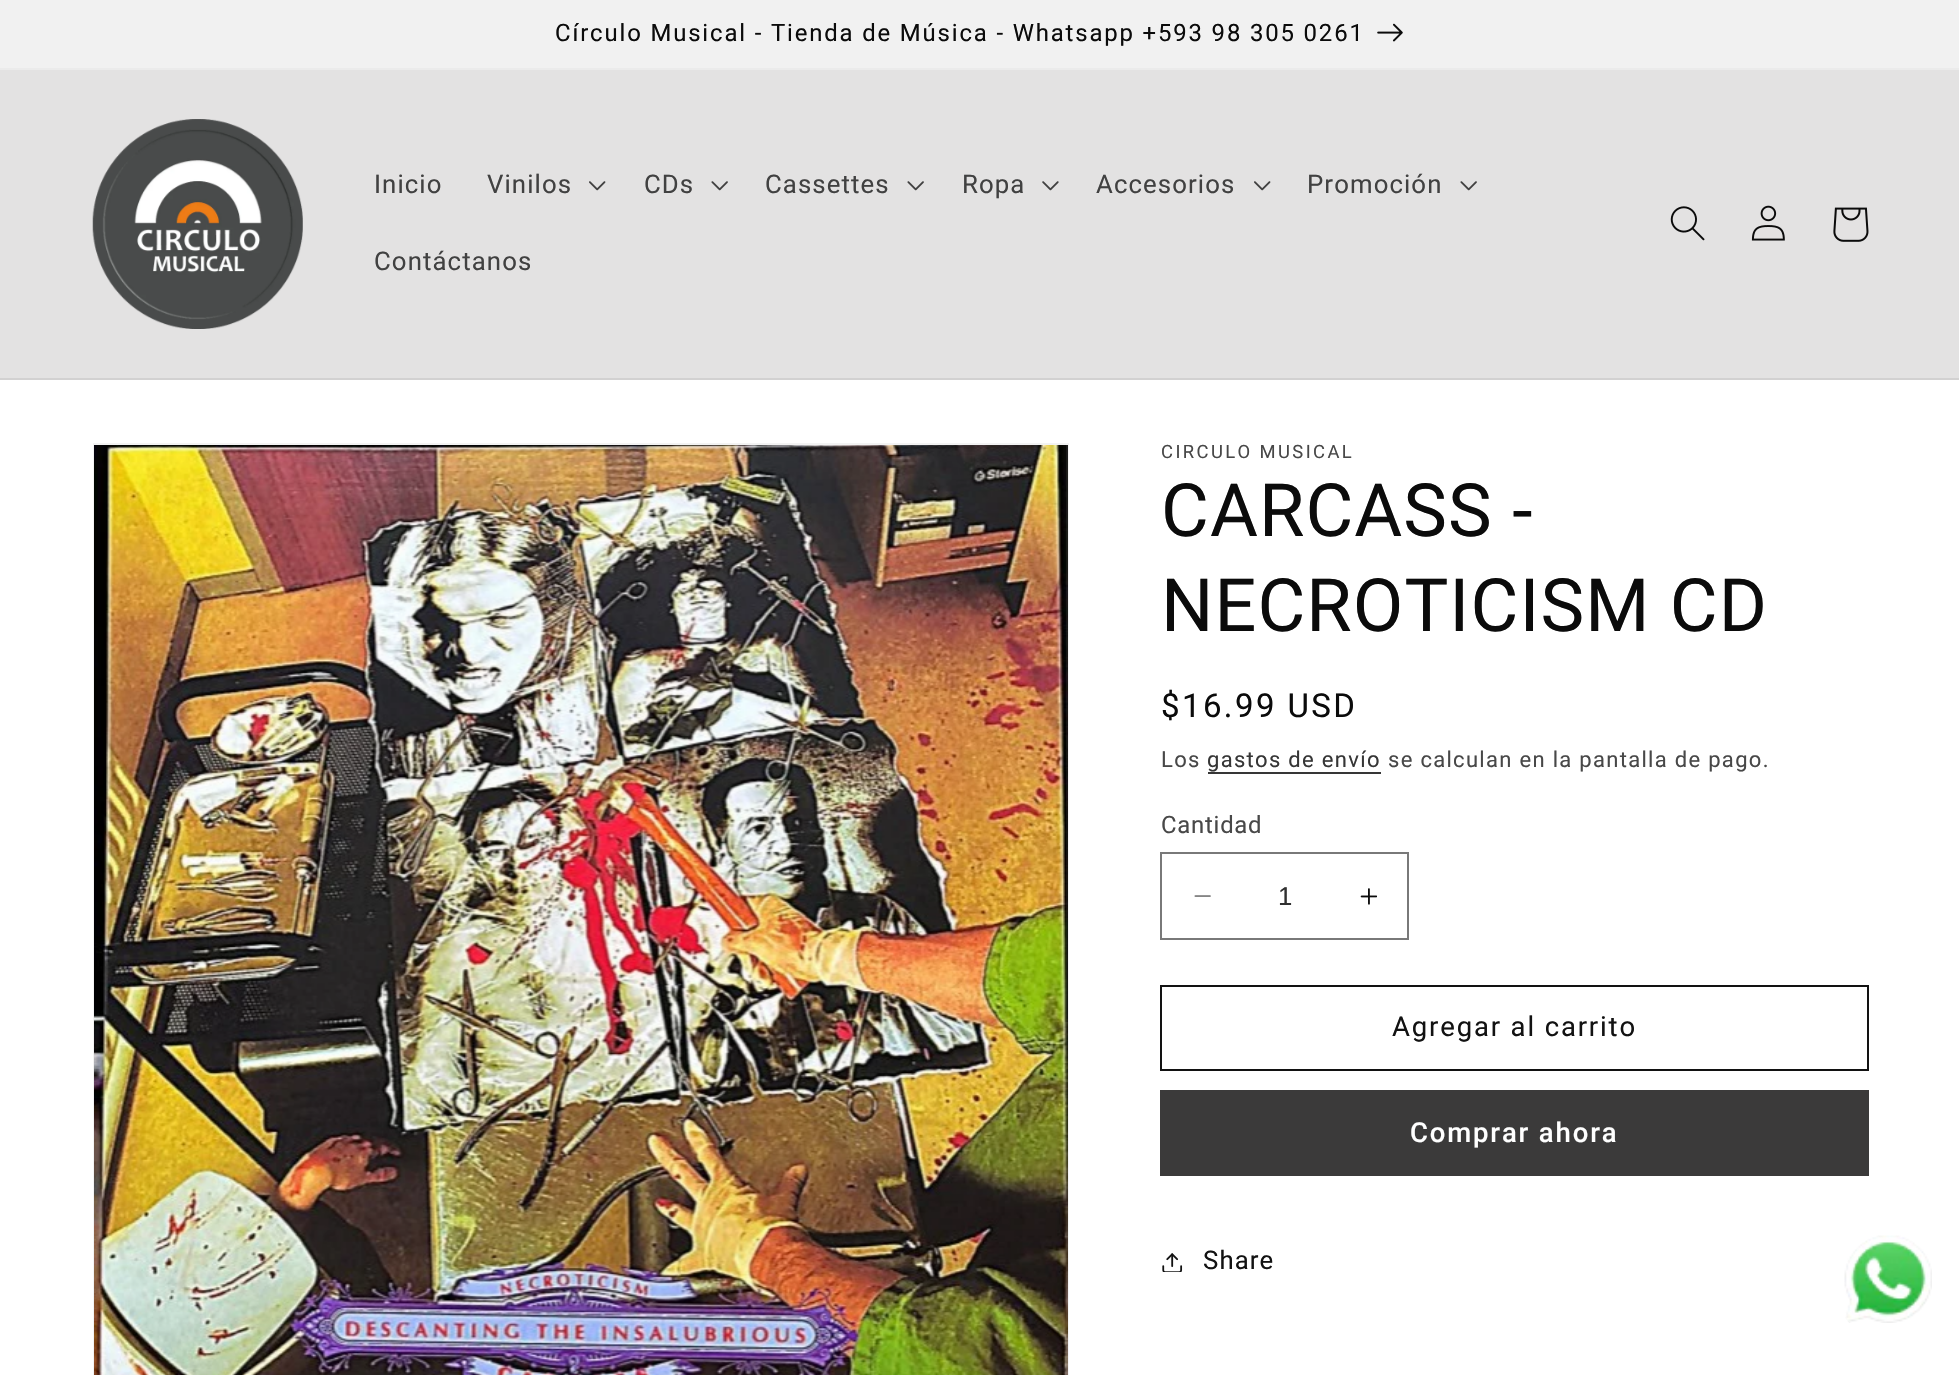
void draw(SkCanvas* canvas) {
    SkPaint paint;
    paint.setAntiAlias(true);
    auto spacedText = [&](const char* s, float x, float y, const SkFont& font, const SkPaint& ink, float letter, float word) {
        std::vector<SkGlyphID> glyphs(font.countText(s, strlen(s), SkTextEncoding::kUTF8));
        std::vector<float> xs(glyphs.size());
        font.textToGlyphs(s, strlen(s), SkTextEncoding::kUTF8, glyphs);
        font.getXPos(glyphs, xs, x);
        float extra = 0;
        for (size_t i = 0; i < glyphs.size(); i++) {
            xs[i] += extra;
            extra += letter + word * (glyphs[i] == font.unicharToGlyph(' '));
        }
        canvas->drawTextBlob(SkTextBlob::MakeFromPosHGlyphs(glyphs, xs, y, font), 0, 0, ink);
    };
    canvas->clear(0xFFFFFFFF);
    paint.setColor(0xFFEBEBEB);
    canvas->drawRect(SkRect::MakeXYWH(0, 68, 1959, 2), paint);
    paint.setColor(0xFFF1F1F1);
    canvas->drawRect(SkRect::MakeXYWH(0, 0, 1959, 68), paint);
    SkFont font1(fontMgr->matchFamilyStyle("Roboto", SkFontStyle::Normal()), 23.9f);
    font1.setSubpixel(true);
    paint.setColor(0xFF0B0B0B);
    spacedText("Círculo Musical - Tienda de Música - Whatsapp +593 98 305 0261", 555, 41, font1, paint, 1.85f, 0);
    canvas->drawImageRect(SkImages::DeferredFromEncodedData(SkData::MakeFromFileName("img1.png")), SkRect::MakeXYWH(1377, 23, 26, 19), SkSamplingOptions());
    paint.setColor(0xFFE3E2E2);
    canvas->drawRect(SkRect::MakeXYWH(0, 70, 1959, 308), paint);
    paint.setColor(0xFFD2D1D1);
    canvas->drawRect(SkRect::MakeXYWH(0, 378, 1959, 2), paint);
    canvas->drawImageRect(SkImages::DeferredFromEncodedData(SkData::MakeFromFileName("img2.png")), SkRect::MakeXYWH(92, 119, 211, 210), SkSamplingOptions());
    SkFont font2(fontMgr->matchFamilyStyle("Roboto", SkFontStyle::Normal()), 25.75f);
    font2.setSubpixel(true);
    paint.setColor(0xFF414141);
    spacedText("Inicio", 374, 193, font2, paint, 1.1f, 0);
    spacedText("Vinilos", 487, 193, font2, paint, 1.1f, 0);
    canvas->drawImageRect(SkImages::DeferredFromEncodedData(SkData::MakeFromFileName("img3.png")), SkRect::MakeXYWH(589, 181, 17, 10), SkSamplingOptions());
    spacedText("CDs", 644, 193, font2, paint, 1.1f, 0);
    canvas->drawImageRect(SkImages::DeferredFromEncodedData(SkData::MakeFromFileName("img4.png")), SkRect::MakeXYWH(711, 181, 17, 10), SkSamplingOptions());
    spacedText("Cassettes", 765, 193, font2, paint, 1.1f, 0);
    canvas->drawImageRect(SkImages::DeferredFromEncodedData(SkData::MakeFromFileName("img4.png")), SkRect::MakeXYWH(907, 181, 17, 10), SkSamplingOptions());
    spacedText("Ropa", 962, 193, font2, paint, 1.1f, 0);
    canvas->drawImageRect(SkImages::DeferredFromEncodedData(SkData::MakeFromFileName("img5.png")), SkRect::MakeXYWH(1042, 181, 17, 10), SkSamplingOptions());
    spacedText("Accesorios", 1096, 193, font2, paint, 1.1f, 0);
    canvas->drawImageRect(SkImages::DeferredFromEncodedData(SkData::MakeFromFileName("img3.png")), SkRect::MakeXYWH(1254, 181, 17, 10), SkSamplingOptions());
    spacedText("Promoción", 1307, 193, font2, paint, 1.1f, 0);
    canvas->drawImageRect(SkImages::DeferredFromEncodedData(SkData::MakeFromFileName("img4.png")), SkRect::MakeXYWH(1460, 181, 17, 10), SkSamplingOptions());
    spacedText("Contáctanos", 374, 270, font2, paint, 1.1f, 0);
    canvas->drawImageRect(SkImages::DeferredFromEncodedData(SkData::MakeFromFileName("img6.png")), SkRect::MakeXYWH(1670, 206, 35, 35), SkSamplingOptions());
    canvas->drawImageRect(SkImages::DeferredFromEncodedData(SkData::MakeFromFileName("img7.png")), SkRect::MakeXYWH(1751, 205, 34, 36), SkSamplingOptions());
    canvas->drawImageRect(SkImages::DeferredFromEncodedData(SkData::MakeFromFileName("img8.png")), SkRect::MakeXYWH(1833, 207, 36, 35), SkSamplingOptions());
    paint.setStyle(SkPaint::kStroke_Style);
    paint.setStrokeWidth(2);
    paint.setColor(0xFFF3F3F3);
    canvas->drawRect(SkRect::MakeXYWH(94, 444, 974, 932), paint);
    canvas->drawImageRect(SkImages::DeferredFromEncodedData(SkData::MakeFromFileName("img9.png")), SkRect::MakeXYWH(94, 445, 974, 930), SkSamplingOptions());
    SkFont font3(fontMgr->matchFamilyStyle("Roboto", SkFontStyle::Normal()), 18.4f);
    font3.setSubpixel(true);
    paint.setStyle(SkPaint::kFill_Style);
    paint.setColor(0xFF484848);
    spacedText("CIRCULO MUSICAL", 1161, 458, font3, paint, 2.4f, 0);
    SkFont font4(fontMgr->matchFamilyStyle("Roboto", SkFontStyle::Normal()), 73.5f);
    font4.setSubpixel(true);
    paint.setColor(0xFF0B0B0B);
    spacedText("CARCASS -", 1161, 536, font4, paint, 1.1f, 0);
    spacedText("NECROTICISM CD", 1161, 631, font4, paint, 1.1f, 0);
    SkFont font5(fontMgr->matchFamilyStyle("Roboto", SkFontStyle::Normal()), 33);
    font5.setSubpixel(true);
    spacedText("$16.99 USD", 1161, 717, font5, paint, 2.4f, 0);
    SkFont font6(fontMgr->matchFamilyStyle("Roboto", SkFontStyle::Normal()), 22);
    font6.setSubpixel(true);
    paint.setColor(0xFF484848);
    spacedText("Los", 1161, 767, font6, paint, 1.3f, 0);
    paint.setColor(0xFF363636);
    spacedText("gastos de envío", 1207, 767, font6, paint, 1.3f, 0);
    canvas->drawRect(SkRect::MakeXYWH(1208, 772, 173, 2), paint);
    paint.setColor(0xFF484848);
    spacedText("se calculan en la pantalla de pago.", 1388, 767, font6, paint, 1.3f, 0);
    spacedText("Cantidad", 1161, 833, font1, paint, 0.75f, 0);
    canvas->drawImageRect(SkImages::DeferredFromEncodedData(SkData::MakeFromFileName("img10.png")), SkRect::MakeXYWH(1194, 895, 17, 2), SkSamplingOptions());
    canvas->drawImageRect(SkImages::DeferredFromEncodedData(SkData::MakeFromFileName("img11.png")), SkRect::MakeXYWH(1360, 888, 17, 17), SkSamplingOptions());
    paint.setStyle(SkPaint::kStroke_Style);
    paint.setColor(0xFF797979);
    canvas->drawRect(SkRect::MakeXYWH(1161, 853, 247, 86), paint);
    SkFont font7(fontMgr->matchFamilyStyle("Liberation Sans", SkFontStyle::Normal()), 25.75f);
    font7.setSubpixel(true);
    paint.setStyle(SkPaint::kFill_Style);
    paint.setColor(0xFF303030);
    canvas->drawString("1", 1278, 905, font7, paint);
    paint.setStyle(SkPaint::kStroke_Style);
    paint.setColor(0xFF121212);
    canvas->drawRect(SkRect::MakeXYWH(1161, 986, 707, 84), paint);
    SkFont font8(fontMgr->matchFamilyStyle("Roboto", SkFontStyle::Normal()), 27.5f);
    font8.setSubpixel(true);
    paint.setStyle(SkPaint::kFill_Style);
    spacedText("Agregar al carrito", 1392, 1036, font8, paint, 1.85f, 0);
    paint.setColor(0xFF3B3A3A);
    canvas->drawRect(SkRect::MakeXYWH(1160, 1090, 709, 86), paint);
    SkFont font9(fontMgr->matchFamilyStyle("Roboto", SkFontStyle(500, SkFontStyle::kNormal_Width, SkFontStyle::kUpright_Slant)), 27.5f);
    font9.setSubpixel(true);
    paint.setColor(0xFFFFFFFF);
    spacedText("Comprar ahora", 1410, 1142, font9, paint, 1.85f, 0);
    canvas->drawImageRect(SkImages::DeferredFromEncodedData(SkData::MakeFromFileName("img12.png")), SkRect::MakeXYWH(1162, 1253, 21, 19), SkSamplingOptions());
    paint.setColor(0xFF121212);
    spacedText("Share", 1203, 1269, font2, paint, 1.1f, 0);
    canvas->drawImageRect(SkImages::DeferredFromEncodedData(SkData::MakeFromFileName("img13.png")), SkRect::MakeXYWH(1844, 1235, 88, 88), SkSamplingOptions());
}
